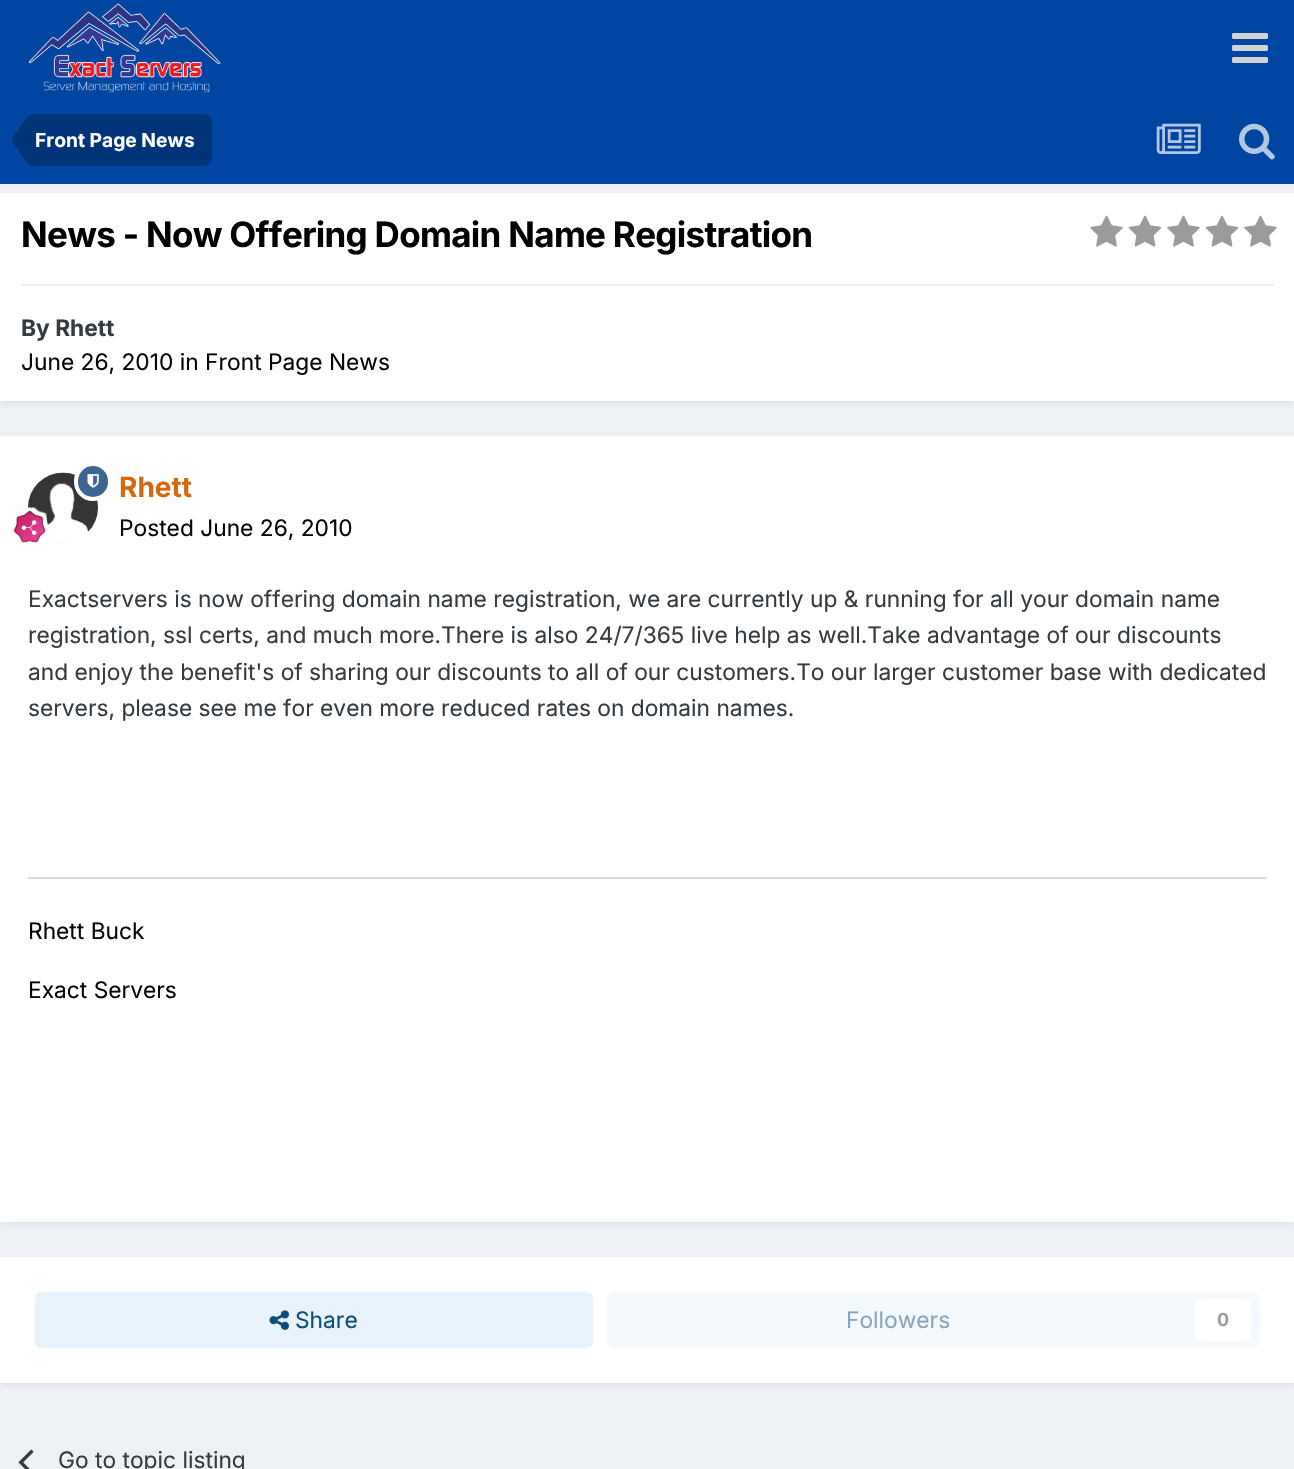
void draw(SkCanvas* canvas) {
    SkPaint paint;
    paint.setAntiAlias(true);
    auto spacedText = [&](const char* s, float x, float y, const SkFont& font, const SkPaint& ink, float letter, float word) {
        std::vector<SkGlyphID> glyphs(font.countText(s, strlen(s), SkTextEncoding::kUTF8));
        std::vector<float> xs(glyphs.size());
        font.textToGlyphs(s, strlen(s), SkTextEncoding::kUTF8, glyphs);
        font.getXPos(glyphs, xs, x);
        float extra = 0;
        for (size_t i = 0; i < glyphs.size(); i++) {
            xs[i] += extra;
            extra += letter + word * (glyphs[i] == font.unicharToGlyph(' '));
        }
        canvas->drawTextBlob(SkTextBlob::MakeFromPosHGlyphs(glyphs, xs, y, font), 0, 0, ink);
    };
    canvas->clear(0xFFEDF0F4);
    paint.setColor(0xFF0045A1);
    canvas->drawRect(SkRect::MakeXYWH(0, 0, 1294, 184), paint);
    canvas->drawImageRect(SkImages::DeferredFromEncodedData(SkData::MakeFromFileName("img1.png")), SkRect::MakeXYWH(28, 3, 193, 90), SkSamplingOptions());
    canvas->drawImageRect(SkImages::DeferredFromEncodedData(SkData::MakeFromFileName("img2.png")), SkRect::MakeXYWH(1232, 33, 36, 30), SkSamplingOptions());
    paint.setColor(0xFF003479);
    canvas->drawPath(SkPathBuilder().moveTo(35, 114).lineTo(203, 114).cubicTo(208, 114, 212, 118, 212, 123).lineTo(212, 157).cubicTo(212, 162, 208, 166, 203, 166).lineTo(35, 166).close().detach(), paint);
    canvas->drawPath(SkPathBuilder().moveTo(35, 140).lineTo(35, 166).cubicTo(31, 166, 27.5f, 164, 25, 160).lineTo(12.5f, 142.5f).lineTo(12, 140).close().moveTo(35, 140).lineTo(12, 140).lineTo(12.5f, 137.5f).lineTo(25, 120).cubicTo(27.5f, 116, 31, 114, 35, 114).close().detach(), paint);
    SkFont font1(fontMgr->matchFamilyStyle("Inter", SkFontStyle::Bold()), 19.25f);
    font1.setSubpixel(true);
    paint.setColor(0xFFFFFFFF);
    canvas->drawString("Front Page News", 35, 147, font1, paint);
    canvas->drawImageRect(SkImages::DeferredFromEncodedData(SkData::MakeFromFileName("img3.png")), SkRect::MakeXYWH(1156, 123, 45, 31), SkSamplingOptions());
    canvas->drawImageRect(SkImages::DeferredFromEncodedData(SkData::MakeFromFileName("img4.png")), SkRect::MakeXYWH(1239, 123, 36, 37), SkSamplingOptions());
    paint.setColor(0x1A2D3748);
    paint.setMaskFilter(SkMaskFilter::MakeBlur(kNormal_SkBlurStyle, 3.5f));
    canvas->drawRect(SkRect::MakeXYWH(2, 198, 1291, 205), paint);
    paint.setMaskFilter(nullptr);
    paint.setColor(0xFFFFFFFF);
    canvas->drawRect(SkRect::MakeXYWH(0, 193, 1294, 208), paint);
    SkFont font2(fontMgr->matchFamilyStyle("Inter", SkFontStyle::Bold()), 35);
    font2.setSubpixel(true);
    paint.setColor(0xFF000000);
    spacedText("News - Now Offering Domain Name Registration", 21, 247, font2, paint, -0.7f, 0);
    canvas->drawImageRect(SkImages::DeferredFromEncodedData(SkData::MakeFromFileName("img5.png")), SkRect::MakeXYWH(1090, 215, 33, 32), SkSamplingOptions());
    canvas->drawImageRect(SkImages::DeferredFromEncodedData(SkData::MakeFromFileName("img6.png")), SkRect::MakeXYWH(1128, 215, 34, 32), SkSamplingOptions());
    canvas->drawImageRect(SkImages::DeferredFromEncodedData(SkData::MakeFromFileName("img5.png")), SkRect::MakeXYWH(1167, 215, 33, 32), SkSamplingOptions());
    canvas->drawImageRect(SkImages::DeferredFromEncodedData(SkData::MakeFromFileName("img6.png")), SkRect::MakeXYWH(1205, 215, 34, 32), SkSamplingOptions());
    canvas->drawImageRect(SkImages::DeferredFromEncodedData(SkData::MakeFromFileName("img5.png")), SkRect::MakeXYWH(1244, 215, 33, 32), SkSamplingOptions());
    paint.setColor(0xFFEFEFF0);
    canvas->drawRect(SkRect::MakeXYWH(21, 284, 1253, 2), paint);
    SkFont font3(fontMgr->matchFamilyStyle("Inter", SkFontStyle::Bold()), 22.75f);
    font3.setSubpixel(true);
    paint.setColor(0xFF353C41);
    canvas->drawString("By Rhett", 21, 336, font3, paint);
    SkFont font4(fontMgr->matchFamilyStyle("Inter", SkFontStyle::Normal()), 22.75f);
    font4.setSubpixel(true);
    paint.setColor(0xFF050607);
    canvas->drawString("June 26, 2010 in Front Page News", 21, 370, font4, paint);
    paint.setColor(0x1A2D3748);
    paint.setMaskFilter(SkMaskFilter::MakeBlur(kNormal_SkBlurStyle, 3.5f));
    canvas->drawRect(SkRect::MakeXYWH(2, 441, 1291, 782), paint);
    paint.setMaskFilter(nullptr);
    paint.setColor(0xFFFFFFFF);
    canvas->drawRect(SkRect::MakeXYWH(0, 436, 1294, 786), paint);
    canvas->drawImageRect(SkImages::DeferredFromEncodedData(SkData::MakeFromFileName("img8.png")), SkRect::MakeXYWH(28, 472, 70, 70), SkSamplingOptions());
    paint.setColor(0xFF3D6594);
    canvas->drawRoundRect(SkRect::MakeXYWH(76, 464, 34, 35), 17, 17, paint);
    paint.setStyle(SkPaint::kStroke_Style);
    paint.setStrokeWidth(4);
    paint.setColor(0xFFFFFFFF);
    canvas->drawRoundRect(SkRect::MakeXYWH(76, 464, 34, 35), 17, 17, paint);
    canvas->drawImageRect(SkImages::DeferredFromEncodedData(SkData::MakeFromFileName("img7.png")), SkRect::MakeXYWH(87, 474, 12, 14), SkSamplingOptions());
    canvas->drawImageRect(SkImages::DeferredFromEncodedData(SkData::MakeFromFileName("img9.png")), SkRect::MakeXYWH(14, 507, 35, 36), SkSamplingOptions());
    SkFont font5(fontMgr->matchFamilyStyle("Inter", SkFontStyle::Bold()), 28);
    font5.setSubpixel(true);
    paint.setStyle(SkPaint::kFill_Style);
    paint.setColor(0xFFD4690F);
    canvas->drawString("Rhett", 119, 497, font5, paint);
    paint.setColor(0xFF050607);
    canvas->drawString("Posted June 26, 2010", 119, 536, font4, paint);
    paint.setColor(0xFF353C41);
    canvas->drawString("Exactservers is now offering domain name registration, we are currently up & running for all your domain name", 28, 607, font4, paint);
    canvas->drawString("registration, ssl certs, and much more.There is also 24/7/365 live help as well.Take advantage of our discounts", 28, 643, font4, paint);
    canvas->drawString("and enjoy the benefit's of sharing our discounts to all of our customers.To our larger customer base with dedicated", 28, 680, font4, paint);
    canvas->drawString("servers, please see me for even more reduced rates on domain names.", 28, 716, font4, paint);
    paint.setColor(0xFFDADADA);
    canvas->drawRect(SkRect::MakeXYWH(28, 877, 1239, 2), paint);
    paint.setColor(0xFF050607);
    canvas->drawString("Rhett Buck", 28, 939, font4, paint);
    canvas->drawString("Exact Servers", 28, 998, font4, paint);
    paint.setColor(0x1A2D3748);
    paint.setMaskFilter(SkMaskFilter::MakeBlur(kNormal_SkBlurStyle, 3.5f));
    canvas->drawRect(SkRect::MakeXYWH(2, 1262, 1291, 122), paint);
    paint.setMaskFilter(nullptr);
    paint.setColor(0xFFFFFFFF);
    canvas->drawRect(SkRect::MakeXYWH(0, 1257, 1294, 126), paint);
    paint.setColor(0xFFE8F2FA);
    canvas->drawRoundRect(SkRect::MakeXYWH(35, 1292, 558, 56), 7, 7, paint);
    canvas->drawImageRect(SkImages::DeferredFromEncodedData(SkData::MakeFromFileName("img10.png")), SkRect::MakeXYWH(269, 1310, 20, 20), SkSamplingOptions());
    paint.setColor(0xFF0E4C79);
    canvas->drawString("Share", 295, 1328, font4, paint);
    paint.setColor(0xFFF4F9FD);
    canvas->drawRoundRect(SkRect::MakeXYWH(607, 1292, 653, 56), 7, 7, paint);
    paint.setColor(0xFF87A6BC);
    canvas->drawString("Followers", 846, 1328, font4, paint);
    paint.setColor(0xFFFFFFFF);
    canvas->drawRoundRect(SkRect::MakeXYWH(1195, 1299, 56, 42), 7, 7, paint);
    SkFont font6(fontMgr->matchFamilyStyle("Inter", SkFontStyle::Bold()), 18);
    font6.setSubpixel(true);
    paint.setColor(0xFF9A9EA0);
    canvas->drawString("0", 1217, 1326, font6, paint);
    canvas->drawImageRect(SkImages::DeferredFromEncodedData(SkData::MakeFromFileName("img11.png")), SkRect::MakeXYWH(18, 1449, 16, 20), SkSamplingOptions());
    paint.setColor(0xFF353C41);
    canvas->drawString("Go to topic listing", 58, 1468, font4, paint);
}
